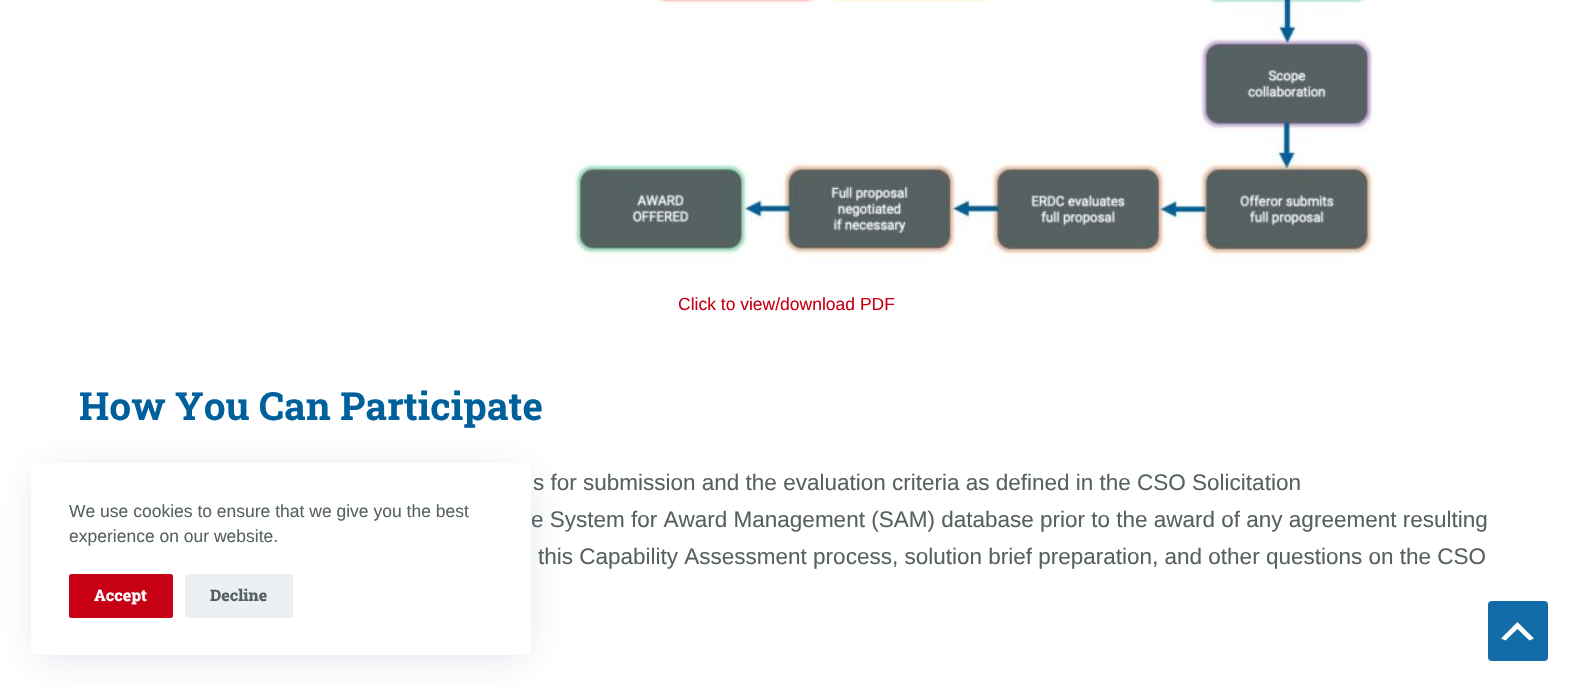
void draw(SkCanvas* canvas) {
    SkPaint paint;
    paint.setAntiAlias(true);
    canvas->clear(0xFFFFFFFF);
    canvas->drawImageRect(SkImages::DeferredFromEncodedData(SkData::MakeFromFileName("img1.png")), SkRect::MakeXYWH(566, 0, 811, 262), SkSamplingOptions());
    SkFont font1(fontMgr->matchFamilyStyle("Liberation Sans", SkFontStyle::Normal()), 17.5f);
    font1.setSubpixel(true);
    paint.setColor(0xFFC70016);
    canvas->drawString("Click to view/download PDF", 678, 310, font1, paint);
    SkFont font2(fontMgr->matchFamilyStyle("Roboto Slab", SkFontStyle::Bold()), 38.75f);
    font2.setSubpixel(true);
    paint.setColor(0xFF00609C);
    canvas->drawString("How You Can Participate", 79, 420, font2, paint);
    SkFont font3(fontMgr->matchFamilyStyle("Liberation Sans", SkFontStyle::Normal()), 22.5f);
    font3.setSubpixel(true);
    paint.setColor(0xFF566261);
    canvas->drawString("s for submission and the evaluation criteria as defined in the CSO Solicitation", 533, 490, font3, paint);
    canvas->drawString("e System for Award Management (SAM) database prior to the award of any agreement resulting", 531, 527, font3, paint);
    canvas->drawString("this Capability Assessment process, solution brief preparation, and other questions on the CSO", 538, 564, font3, paint);
    paint.setColor(0x26223865);
    paint.setMaskFilter(SkMaskFilter::MakeBlur(kNormal_SkBlurStyle, 19));
    canvas->drawRect(SkRect::MakeXYWH(38, 475, 487, 180), paint);
    paint.setMaskFilter(nullptr);
    paint.setColor(0xFFFFFFFF);
    canvas->drawRoundRect(SkRect::MakeXYWH(31, 463, 500, 192), 4, 4, paint);
    paint.setColor(0xFF566261);
    canvas->drawString("We use cookies to ensure that we give you the best", 69, 517, font1, paint);
    canvas->drawString("experience on our website.", 69, 542, font1, paint);
    paint.setColor(0xFFC70016);
    canvas->drawRoundRect(SkRect::MakeXYWH(69, 574, 104, 44), 2.5f, 2.5f, paint);
    SkFont font4(fontMgr->matchFamilyStyle("Roboto Slab", SkFontStyle(800, SkFontStyle::kNormal_Width, SkFontStyle::kUpright_Slant)), 16);
    font4.setSubpixel(true);
    paint.setColor(0xFFFFFFFF);
    canvas->drawString("Accept", 94, 601, font4, paint);
    paint.setColor(0xFFECEFF3);
    canvas->drawRoundRect(SkRect::MakeXYWH(185, 574, 108, 44), 2.5f, 2.5f, paint);
    paint.setColor(0xFF566261);
    canvas->drawString("Decline", 210, 601, font4, paint);
    paint.setColor(0xFF116CA7);
    canvas->drawRoundRect(SkRect::MakeXYWH(1488, 601, 60, 60), 4, 4, paint);
    paint.setColor(0xFFFFFFFF);
    canvas->drawPath(SkPathBuilder().moveTo(1529.5f, 640.5f).lineTo(1517.5f, 629).lineTo(1505.5f, 640.5f).lineTo(1501, 638.5f).lineTo(1517.5f, 622).lineTo(1534, 638.5f).close().detach(), paint);
}
